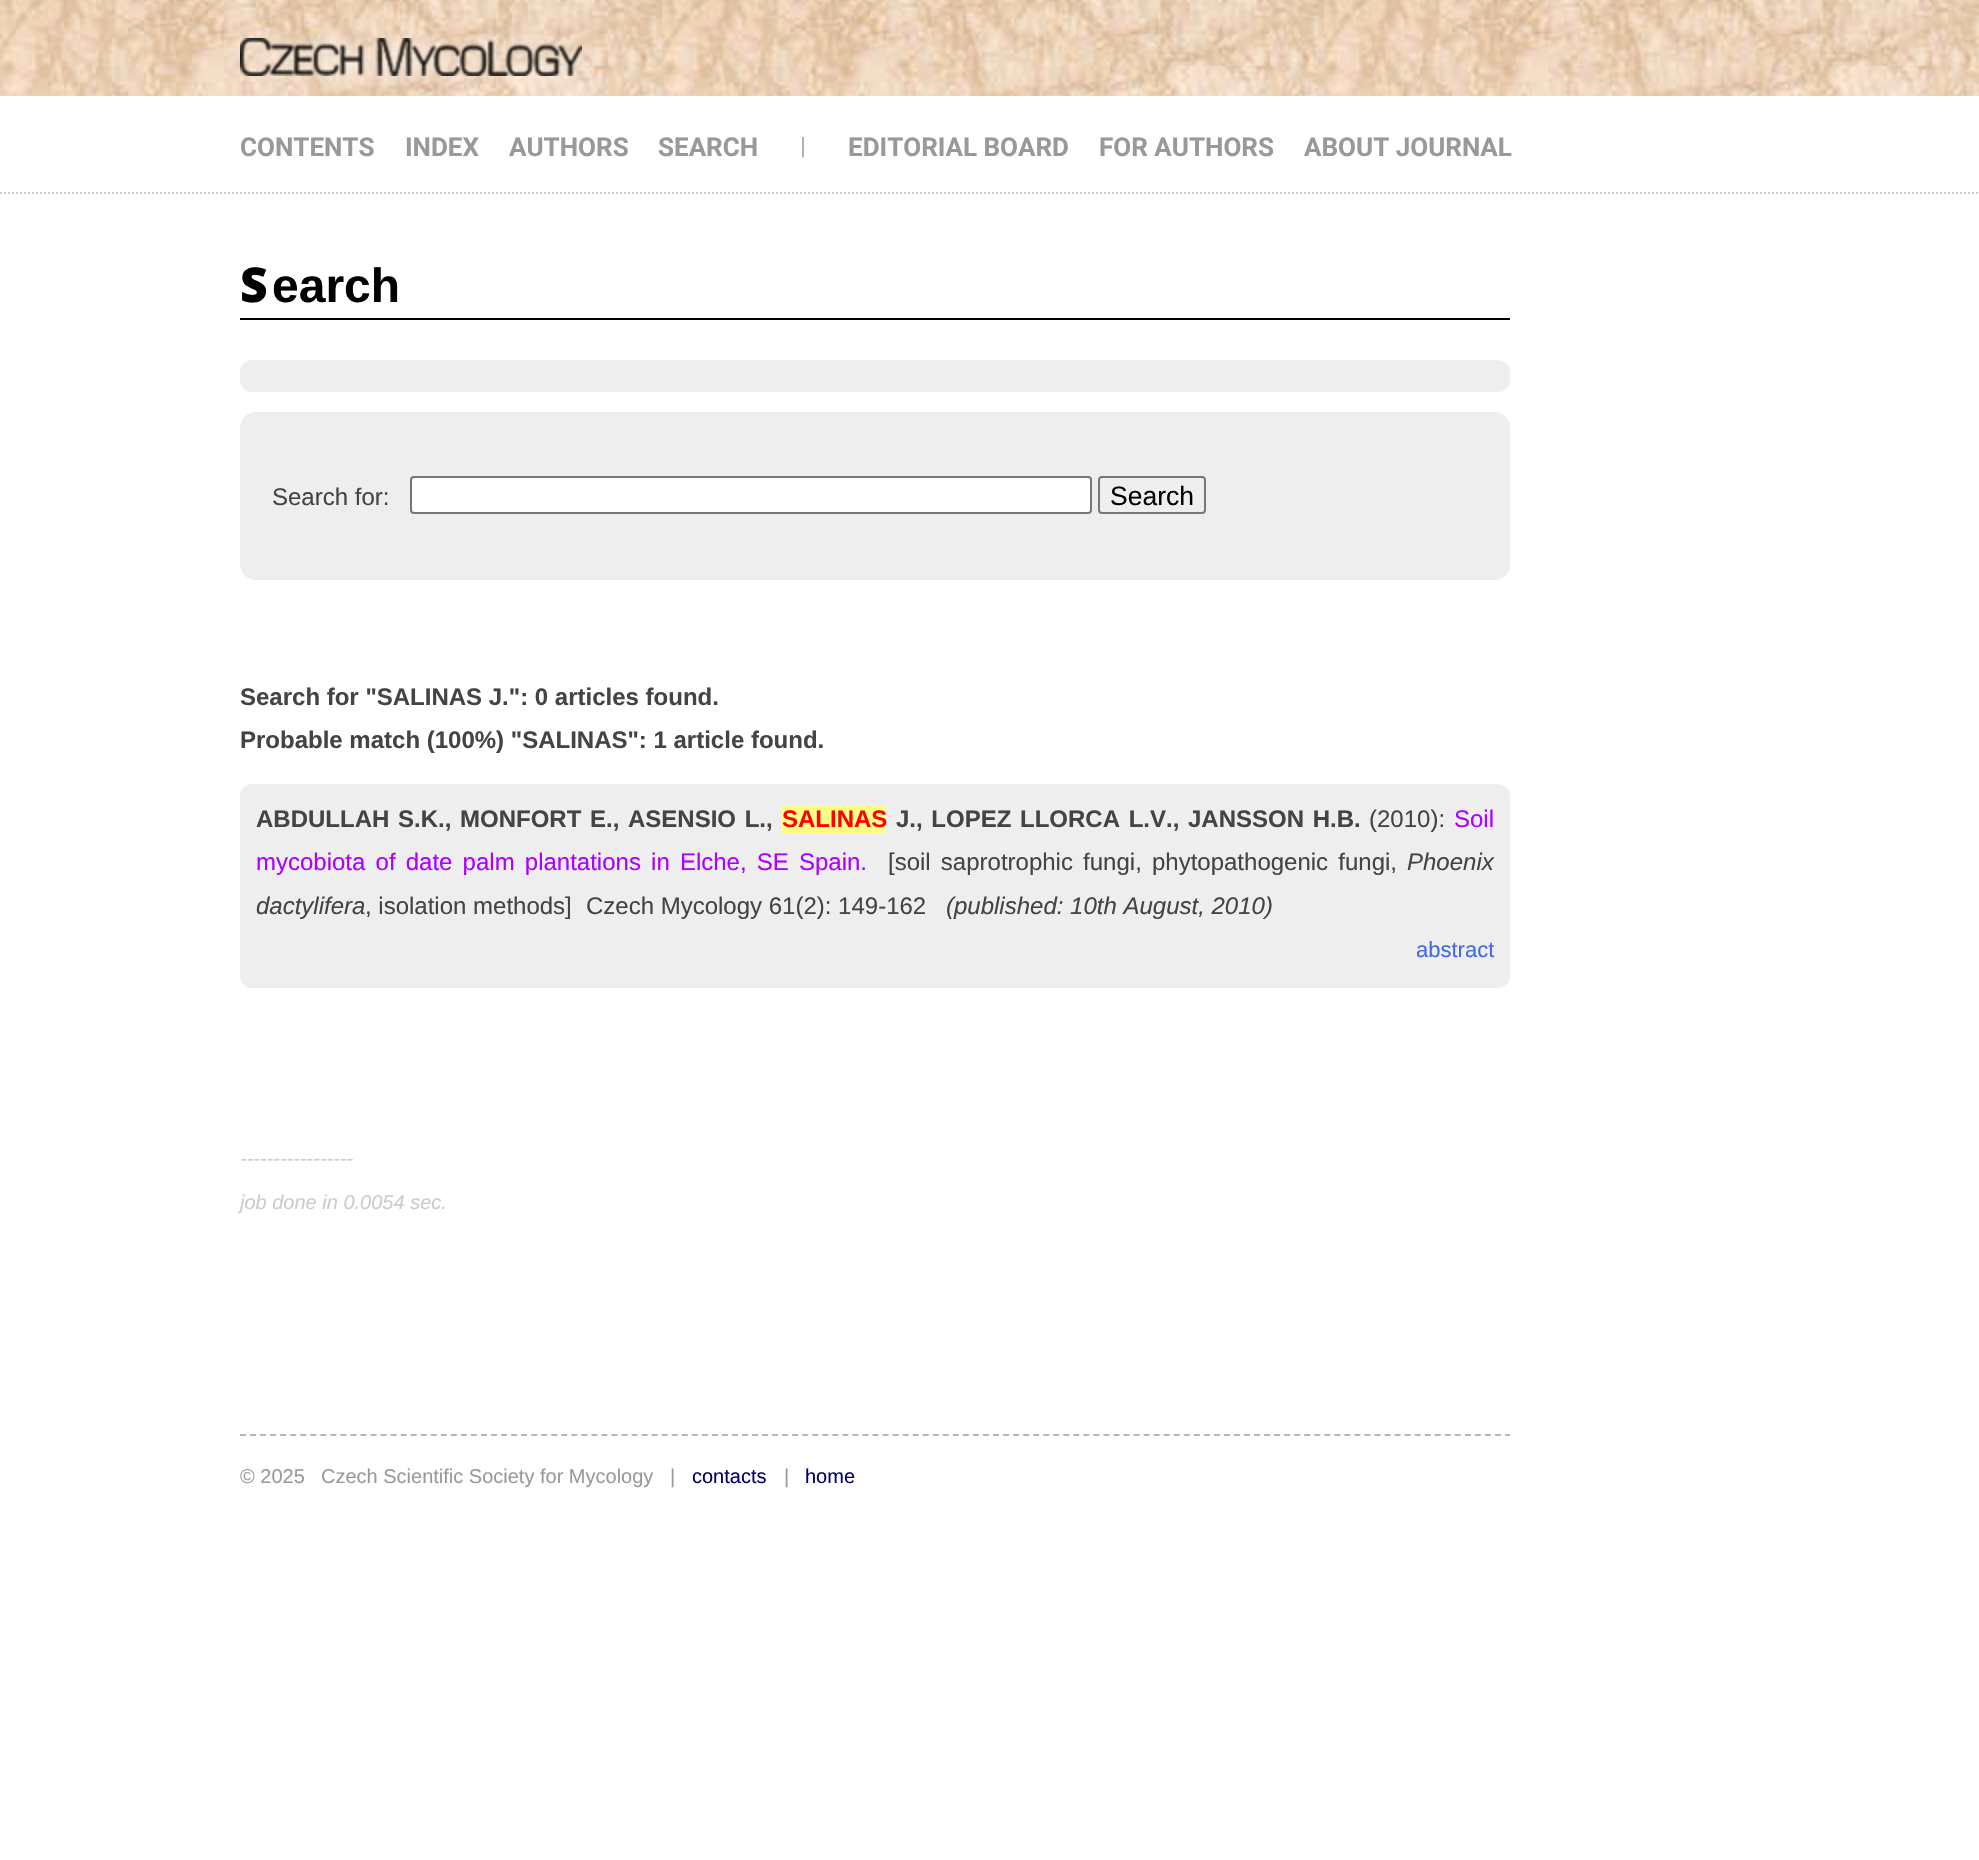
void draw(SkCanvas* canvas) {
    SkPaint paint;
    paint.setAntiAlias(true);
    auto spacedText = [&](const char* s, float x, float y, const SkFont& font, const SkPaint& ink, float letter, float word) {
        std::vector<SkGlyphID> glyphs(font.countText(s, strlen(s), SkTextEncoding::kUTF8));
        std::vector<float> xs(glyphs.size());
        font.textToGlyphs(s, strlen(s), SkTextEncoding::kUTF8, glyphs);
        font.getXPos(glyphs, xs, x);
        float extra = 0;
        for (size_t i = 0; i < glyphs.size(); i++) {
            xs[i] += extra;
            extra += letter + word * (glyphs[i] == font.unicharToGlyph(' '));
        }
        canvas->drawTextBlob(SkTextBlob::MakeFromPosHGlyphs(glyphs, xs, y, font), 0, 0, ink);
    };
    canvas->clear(0xFFFFFFFF);
    paint.setStyle(SkPaint::kStroke_Style);
    paint.setStrokeWidth(2);
    paint.setColor(0xFFCCCCCC);
    paint.setPathEffect(SkDashPathEffect::Make({{2, 2}}, 0));
    canvas->drawPath(SkPathBuilder().moveTo(0, 193).lineTo(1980, 193).detach(), paint);
    paint.setPathEffect(nullptr);
    canvas->drawImageRect(SkImages::DeferredFromEncodedData(SkData::MakeFromFileName("img1.png")), SkRect::MakeXYWH(0, 0, 1979, 96), SkSamplingOptions());
    canvas->drawImageRect(SkImages::DeferredFromEncodedData(SkData::MakeFromFileName("img2.png")), SkRect::MakeXYWH(230, 28, 358, 59), SkSamplingOptions());
    SkFont font1(fontMgr->matchFamilyStyle("Roboto", SkFontStyle::Bold()), 26);
    font1.setSubpixel(true);
    paint.setStyle(SkPaint::kFill_Style);
    paint.setColor(0xFF999999);
    canvas->drawString("CONTENTS", 240, 156, font1, paint);
    canvas->drawString("INDEX", 405, 156, font1, paint);
    canvas->drawString("AUTHORS", 509, 156, font1, paint);
    canvas->drawString("SEARCH", 658, 156, font1, paint);
    SkFont font2(fontMgr->matchFamilyStyle("Roboto", SkFontStyle::Normal()), 24);
    font2.setSubpixel(true);
    paint.setColor(0xFFAAAAAA);
    canvas->drawString("|", 800, 154, font2, paint);
    paint.setColor(0xFF999999);
    canvas->drawString("EDITORIAL BOARD", 848, 156, font1, paint);
    canvas->drawString("FOR AUTHORS", 1099, 156, font1, paint);
    canvas->drawString("ABOUT JOURNAL", 1304, 156, font1, paint);
    paint.setColor(0xFF000000);
    canvas->drawRect(SkRect::MakeXYWH(240, 318, 1270, 2), paint);
    SkFont font3(fontMgr->matchFamilyStyle("Noto Sans", SkFontStyle(900, SkFontStyle::kNormal_Width, SkFontStyle::kUpright_Slant)), 48);
    font3.setSubpixel(true);
    canvas->drawString("S", 240, 302, font3, paint);
    SkFont font4(fontMgr->matchFamilyStyle("Liberation Sans", SkFontStyle::Bold()), 48);
    font4.setSubpixel(true);
    canvas->drawString("earch", 272, 302, font4, paint);
    paint.setColor(0xFFEEEEEE);
    canvas->drawRoundRect(SkRect::MakeXYWH(240, 360, 1270, 32), 12, 12, paint);
    canvas->drawRoundRect(SkRect::MakeXYWH(240, 412, 1270, 168), 16, 16, paint);
    paint.setStyle(SkPaint::kStroke_Style);
    paint.setPathEffect(SkDashPathEffect::Make({{2, 2}}, 0));
    canvas->drawPath(SkPathBuilder().moveTo(256, 413).lineTo(1494, 413).cubicTo(1502.5f, 413, 1509, 419.5f, 1509, 428).lineTo(1509, 564).cubicTo(1509, 572.5f, 1502.5f, 579, 1494, 579).lineTo(256, 579).cubicTo(247.5f, 579, 241, 572.5f, 241, 564).lineTo(241, 428).cubicTo(241, 419.5f, 247.5f, 413, 256, 413).close().detach(), paint);
    paint.setPathEffect(nullptr);
    SkFont font5(fontMgr->matchFamilyStyle("Liberation Sans", SkFontStyle::Normal()), 24);
    font5.setSubpixel(true);
    paint.setStyle(SkPaint::kFill_Style);
    paint.setColor(0xFF444444);
    canvas->drawString("Search for:", 272, 505, font5, paint);
    paint.setColor(0xFFFFFFFF);
    canvas->drawRoundRect(SkRect::MakeXYWH(411, 477, 680, 36), 3, 3, paint);
    paint.setStyle(SkPaint::kStroke_Style);
    paint.setColor(0xFF767676);
    canvas->drawRoundRect(SkRect::MakeXYWH(411, 477, 680, 36), 3, 3, paint);
    canvas->drawRoundRect(SkRect::MakeXYWH(1099, 477, 106, 36), 3, 3, paint);
    SkFont font6(fontMgr->matchFamilyStyle("Liberation Sans", SkFontStyle::Normal()), 26.5f);
    font6.setSubpixel(true);
    paint.setStyle(SkPaint::kFill_Style);
    paint.setColor(0xFF000000);
    canvas->drawString("Search", 1110, 505, font6, paint);
    SkFont font7(fontMgr->matchFamilyStyle("Liberation Sans", SkFontStyle::Bold()), 24);
    font7.setSubpixel(true);
    paint.setColor(0xFF444444);
    canvas->drawString("Search for \"SALINAS J.\": 0 articles found.", 240, 705, font7, paint);
    canvas->drawString("Probable match (100%) \"SALINAS\": 1 article found.", 240, 748, font7, paint);
    paint.setColor(0xFFEEEEEE);
    canvas->drawRoundRect(SkRect::MakeXYWH(240, 784, 1270, 204), 12, 12, paint);
    paint.setColor(0xFF444444);
    spacedText("ABDULLAH S.K., MONFORT E., ASENSIO L.,", 256, 827, font7, paint, 0, 2);
    paint.setColor(0xFFFEFF86);
    canvas->drawRect(SkRect::MakeXYWH(782, 806, 104, 28), paint);
    paint.setColor(0xFFFF0000);
    canvas->drawString("SALINAS", 782, 827, font7, paint);
    paint.setColor(0xFF444444);
    spacedText("J., LOPEZ LLORCA L.V., JANSSON H.B.", 896, 827, font7, paint, 0, 2);
    canvas->drawString("(2010):", 1369, 827, font5, paint);
    paint.setColor(0xFFAE00FF);
    canvas->drawString("Soil", 1454, 827, font5, paint);
    spacedText("mycobiota of date palm plantations in Elche, SE Spain.", 256, 870, font5, paint, 0, 3.5f);
    paint.setColor(0xFF444444);
    spacedText("[soil saprotrophic fungi, phytopathogenic fungi,", 888, 870, font5, paint, 0, 3.5f);
    SkFont font8(fontMgr->matchFamilyStyle("Liberation Sans", SkFontStyle::Italic()), 24);
    font8.setSubpixel(true);
    canvas->drawString("Phoenix", 1407, 870, font8, paint);
    canvas->drawString("dactylifera", 256, 914, font8, paint);
    canvas->drawString(", isolation methods]", 365, 914, font5, paint);
    canvas->drawString("Czech Mycology 61(2): 149-162", 586, 914, font5, paint);
    canvas->drawString("(published: 10th August, 2010)", 946, 914, font8, paint);
    SkFont font9(fontMgr->matchFamilyStyle("Liberation Sans", SkFontStyle::Normal()), 22);
    font9.setSubpixel(true);
    paint.setColor(0xFF4169E1);
    canvas->drawString("abstract", 1416, 957, font9, paint);
    SkFont font10(fontMgr->matchFamilyStyle("Liberation Sans", SkFontStyle::Italic()), 20);
    font10.setSubpixel(true);
    paint.setColor(0xFFCCCCCC);
    canvas->drawString("-----------------", 240, 1165, font10, paint);
    canvas->drawString("job done in 0.0054 sec.", 240, 1209, font10, paint);
    paint.setStyle(SkPaint::kStroke_Style);
    paint.setColor(0xFFB6B6B6);
    paint.setPathEffect(SkDashPathEffect::Make({{6, 4.04f}}, 0));
    canvas->drawPath(SkPathBuilder().moveTo(240, 1435).lineTo(1510, 1435).detach(), paint);
    paint.setPathEffect(nullptr);
    SkFont font11(fontMgr->matchFamilyStyle("Liberation Sans", SkFontStyle::Normal()), 20);
    font11.setSubpixel(true);
    paint.setStyle(SkPaint::kFill_Style);
    paint.setColor(0xFF999999);
    canvas->drawString("© 2025", 240, 1483, font11, paint);
    canvas->drawString("Czech Scientific Society for Mycology", 321, 1483, font11, paint);
    canvas->drawString("|", 670, 1483, font11, paint);
    paint.setColor(0xFF000066);
    canvas->drawString("contacts", 692, 1483, font11, paint);
    paint.setColor(0xFF999999);
    canvas->drawString("|", 784, 1483, font11, paint);
    paint.setColor(0xFF000066);
    canvas->drawString("home", 805, 1483, font11, paint);
}
